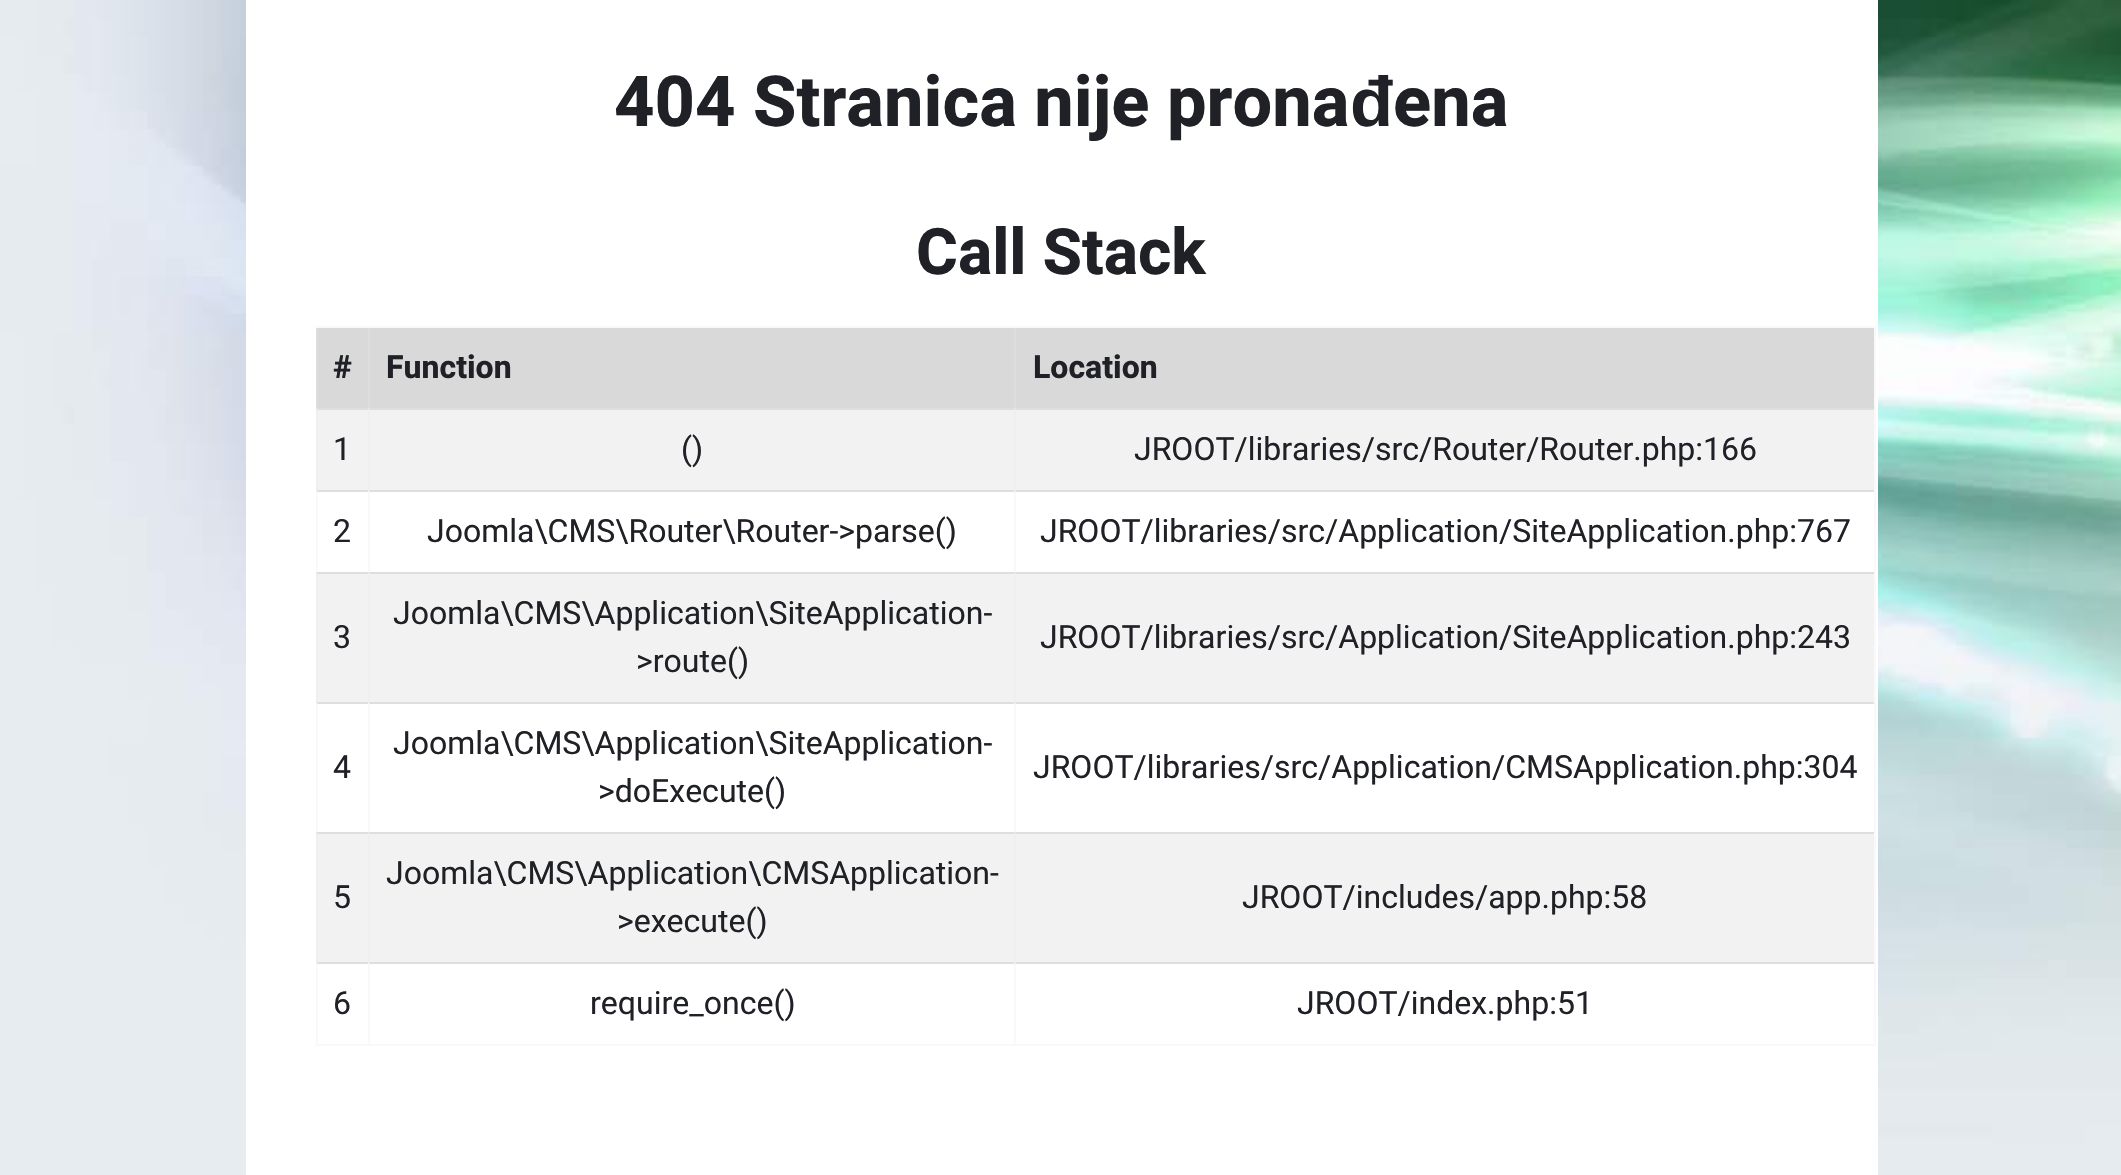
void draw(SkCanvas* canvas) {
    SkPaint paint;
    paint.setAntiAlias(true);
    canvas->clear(0xFFFFFFFF);
    canvas->drawImageRect(SkImages::DeferredFromEncodedData(SkData::MakeFromFileName("img1.png")), SkRect::MakeXYWH(0, 0, 2121, 1175), SkSamplingOptions());
    paint.setColor(0xFFFFFFFF);
    canvas->drawRect(SkRect::MakeXYWH(246, 0, 1632, 1175), paint);
    SkFont font1(fontMgr->matchFamilyStyle("Heebo", SkFontStyle::Bold()), 70.4f);
    font1.setSubpixel(true);
    paint.setColor(0xFF1F2126);
    canvas->drawString("404 Stranica nije prona", 614, 126, font1, paint);
    SkFont font2(fontMgr->matchFamilyStyle("Liberation Sans", SkFontStyle::Bold()), 70.4f);
    font2.setSubpixel(true);
    canvas->drawString("đ", 1350, 126, font2, paint);
    canvas->drawString("ena", 1393, 126, font1, paint);
    SkFont font3(fontMgr->matchFamilyStyle("Heebo", SkFontStyle::Bold()), 64);
    font3.setSubpixel(true);
    canvas->drawString("Call Stack", 916, 274, font3, paint);
    paint.setColor(0xFFF9F9FA);
    canvas->drawPath(SkPathBuilder().moveTo(314, 326).lineTo(1876, 326).lineTo(1874, 328).lineTo(316, 328).close().detach(), paint);
    paint.setColor(0x40E7E8EA);
    canvas->drawPath(SkPathBuilder().moveTo(1876, 326).lineTo(1876, 1046).lineTo(1874, 1044).lineTo(1874, 328).close().detach(), paint);
    canvas->drawPath(SkPathBuilder().moveTo(1876, 1046).lineTo(314, 1046).lineTo(316, 1044).lineTo(1874, 1044).close().detach(), paint);
    paint.setColor(0xFFD9D9D9);
    canvas->drawRect(SkRect::MakeXYWH(318, 328, 50, 80), paint);
    paint.setColor(0xFFDDDDDD);
    canvas->drawRect(SkRect::MakeXYWH(316, 328, 2, 80), paint);
    SkFont font4(fontMgr->matchFamilyStyle("Heebo", SkFontStyle::Bold()), 32);
    font4.setSubpixel(true);
    paint.setColor(0xFF1F2126);
    canvas->drawString("#", 333, 378, font4, paint);
    paint.setColor(0xFFD9D9D9);
    canvas->drawRect(SkRect::MakeXYWH(370, 328, 644, 80), paint);
    paint.setColor(0xFFDDDDDD);
    canvas->drawRect(SkRect::MakeXYWH(368, 328, 2, 80), paint);
    paint.setColor(0xFF1F2126);
    canvas->drawString("Function", 386, 378, font4, paint);
    paint.setColor(0xFFD9D9D9);
    canvas->drawRect(SkRect::MakeXYWH(1016, 328, 858, 80), paint);
    paint.setColor(0xFFDDDDDD);
    canvas->drawRect(SkRect::MakeXYWH(1014, 328, 2, 80), paint);
    paint.setColor(0xFF1F2126);
    canvas->drawString("Location", 1033, 378, font4, paint);
    paint.setColor(0xFFF2F2F2);
    canvas->drawRect(SkRect::MakeXYWH(316, 408, 1558, 82), paint);
    paint.setColor(0xFFDEDEDE);
    canvas->drawPath(SkPathBuilder().moveTo(316, 408).lineTo(368, 408).lineTo(368, 410).lineTo(318, 410).close().detach(), paint);
    paint.setColor(0x40E7E8EA);
    canvas->drawPath(SkPathBuilder().moveTo(316, 490).lineTo(316, 408).lineTo(318, 410).lineTo(318, 490).close().detach(), paint);
    SkFont font5(fontMgr->matchFamilyStyle("Heebo", SkFontStyle::Normal()), 32);
    font5.setSubpixel(true);
    paint.setColor(0xFF1F2126);
    canvas->drawString("1", 333, 460, font5, paint);
    paint.setColor(0xFFDEDEDE);
    canvas->drawPath(SkPathBuilder().moveTo(368, 408).lineTo(1014, 408).lineTo(1014, 410).lineTo(370, 410).close().detach(), paint);
    paint.setColor(0x40E7E8EA);
    canvas->drawPath(SkPathBuilder().moveTo(368, 490).lineTo(368, 408).lineTo(370, 410).lineTo(370, 490).close().detach(), paint);
    paint.setColor(0xFF1F2126);
    canvas->drawString("()", 681, 460, font5, paint);
    paint.setColor(0xFFDEDEDE);
    canvas->drawPath(SkPathBuilder().moveTo(1014, 408).lineTo(1874, 408).lineTo(1874, 410).lineTo(1016, 410).close().detach(), paint);
    paint.setColor(0x40E7E8EA);
    canvas->drawPath(SkPathBuilder().moveTo(1014, 490).lineTo(1014, 408).lineTo(1016, 410).lineTo(1016, 490).close().detach(), paint);
    paint.setColor(0xFF1F2126);
    canvas->drawString("JROOT/libraries/src/Router/Router.php:166", 1134, 460, font5, paint);
    paint.setColor(0xFFDEDEDE);
    canvas->drawPath(SkPathBuilder().moveTo(316, 490).lineTo(368, 490).lineTo(368, 492).lineTo(318, 492).close().detach(), paint);
    paint.setColor(0x40E7E8EA);
    canvas->drawPath(SkPathBuilder().moveTo(316, 572).lineTo(316, 490).lineTo(318, 492).lineTo(318, 572).close().detach(), paint);
    paint.setColor(0xFF1F2126);
    canvas->drawString("2", 333, 542, font5, paint);
    paint.setColor(0xFFDEDEDE);
    canvas->drawPath(SkPathBuilder().moveTo(368, 490).lineTo(1014, 490).lineTo(1014, 492).lineTo(370, 492).close().detach(), paint);
    paint.setColor(0x40E7E8EA);
    canvas->drawPath(SkPathBuilder().moveTo(368, 572).lineTo(368, 490).lineTo(370, 492).lineTo(370, 572).close().detach(), paint);
    paint.setColor(0xFF1F2126);
    canvas->drawString("Joomla\\CMS\\Router\\Router->parse()", 427, 542, font5, paint);
    paint.setColor(0xFFDEDEDE);
    canvas->drawPath(SkPathBuilder().moveTo(1014, 490).lineTo(1874, 490).lineTo(1874, 492).lineTo(1016, 492).close().detach(), paint);
    paint.setColor(0x40E7E8EA);
    canvas->drawPath(SkPathBuilder().moveTo(1014, 572).lineTo(1014, 490).lineTo(1016, 492).lineTo(1016, 572).close().detach(), paint);
    paint.setColor(0xFF1F2126);
    canvas->drawString("JROOT/libraries/src/Application/SiteApplication.php:767", 1040, 542, font5, paint);
    paint.setColor(0xFFF2F2F2);
    canvas->drawRect(SkRect::MakeXYWH(316, 572, 1558, 130), paint);
    paint.setColor(0xFFDEDEDE);
    canvas->drawPath(SkPathBuilder().moveTo(316, 572).lineTo(368, 572).lineTo(368, 574).lineTo(318, 574).close().detach(), paint);
    paint.setColor(0x40E7E8EA);
    canvas->drawPath(SkPathBuilder().moveTo(316, 702).lineTo(316, 572).lineTo(318, 574).lineTo(318, 702).close().detach(), paint);
    paint.setColor(0xFF1F2126);
    canvas->drawString("3", 333, 648, font5, paint);
    paint.setColor(0xFFDEDEDE);
    canvas->drawPath(SkPathBuilder().moveTo(368, 572).lineTo(1014, 572).lineTo(1014, 574).lineTo(370, 574).close().detach(), paint);
    paint.setColor(0x40E7E8EA);
    canvas->drawPath(SkPathBuilder().moveTo(368, 702).lineTo(368, 572).lineTo(370, 574).lineTo(370, 702).close().detach(), paint);
    paint.setColor(0xFF1F2126);
    canvas->drawString("Joomla\\CMS\\Application\\SiteApplication-", 393, 624, font5, paint);
    canvas->drawString(">route()", 636, 672, font5, paint);
    paint.setColor(0xFFDEDEDE);
    canvas->drawPath(SkPathBuilder().moveTo(1014, 572).lineTo(1874, 572).lineTo(1874, 574).lineTo(1016, 574).close().detach(), paint);
    paint.setColor(0x40E7E8EA);
    canvas->drawPath(SkPathBuilder().moveTo(1014, 702).lineTo(1014, 572).lineTo(1016, 574).lineTo(1016, 702).close().detach(), paint);
    paint.setColor(0xFF1F2126);
    canvas->drawString("JROOT/libraries/src/Application/SiteApplication.php:243", 1040, 648, font5, paint);
    paint.setColor(0xFFDEDEDE);
    canvas->drawPath(SkPathBuilder().moveTo(316, 702).lineTo(368, 702).lineTo(368, 704).lineTo(318, 704).close().detach(), paint);
    paint.setColor(0x40E7E8EA);
    canvas->drawPath(SkPathBuilder().moveTo(316, 832).lineTo(316, 702).lineTo(318, 704).lineTo(318, 832).close().detach(), paint);
    paint.setColor(0xFF1F2126);
    canvas->drawString("4", 333, 778, font5, paint);
    paint.setColor(0xFFDEDEDE);
    canvas->drawPath(SkPathBuilder().moveTo(368, 702).lineTo(1014, 702).lineTo(1014, 704).lineTo(370, 704).close().detach(), paint);
    paint.setColor(0x40E7E8EA);
    canvas->drawPath(SkPathBuilder().moveTo(368, 832).lineTo(368, 702).lineTo(370, 704).lineTo(370, 832).close().detach(), paint);
    paint.setColor(0xFF1F2126);
    canvas->drawString("Joomla\\CMS\\Application\\SiteApplication-", 393, 754, font5, paint);
    canvas->drawString(">doExecute()", 598, 802, font5, paint);
    paint.setColor(0xFFDEDEDE);
    canvas->drawPath(SkPathBuilder().moveTo(1014, 702).lineTo(1874, 702).lineTo(1874, 704).lineTo(1016, 704).close().detach(), paint);
    paint.setColor(0x40E7E8EA);
    canvas->drawPath(SkPathBuilder().moveTo(1014, 832).lineTo(1014, 702).lineTo(1016, 704).lineTo(1016, 832).close().detach(), paint);
    paint.setColor(0xFF1F2126);
    canvas->drawString("JROOT/libraries/src/Application/CMSApplication.php:304", 1033, 778, font5, paint);
    paint.setColor(0xFFF2F2F2);
    canvas->drawRect(SkRect::MakeXYWH(316, 832, 1558, 130), paint);
    paint.setColor(0xFFDEDEDE);
    canvas->drawPath(SkPathBuilder().moveTo(316, 832).lineTo(368, 832).lineTo(368, 834).lineTo(318, 834).close().detach(), paint);
    paint.setColor(0x40E7E8EA);
    canvas->drawPath(SkPathBuilder().moveTo(316, 962).lineTo(316, 832).lineTo(318, 834).lineTo(318, 962).close().detach(), paint);
    paint.setColor(0xFF1F2126);
    canvas->drawString("5", 333, 908, font5, paint);
    paint.setColor(0xFFDEDEDE);
    canvas->drawPath(SkPathBuilder().moveTo(368, 832).lineTo(1014, 832).lineTo(1014, 834).lineTo(370, 834).close().detach(), paint);
    paint.setColor(0x40E7E8EA);
    canvas->drawPath(SkPathBuilder().moveTo(368, 962).lineTo(368, 832).lineTo(370, 834).lineTo(370, 962).close().detach(), paint);
    paint.setColor(0xFF1F2126);
    canvas->drawString("Joomla\\CMS\\Application\\CMSApplication-", 386, 884, font5, paint);
    canvas->drawString(">execute()", 617, 932, font5, paint);
    paint.setColor(0xFFDEDEDE);
    canvas->drawPath(SkPathBuilder().moveTo(1014, 832).lineTo(1874, 832).lineTo(1874, 834).lineTo(1016, 834).close().detach(), paint);
    paint.setColor(0x40E7E8EA);
    canvas->drawPath(SkPathBuilder().moveTo(1014, 962).lineTo(1014, 832).lineTo(1016, 834).lineTo(1016, 962).close().detach(), paint);
    paint.setColor(0xFF1F2126);
    canvas->drawString("JROOT/includes/app.php:58", 1242, 908, font5, paint);
    paint.setColor(0xFFDEDEDE);
    canvas->drawPath(SkPathBuilder().moveTo(316, 962).lineTo(368, 962).lineTo(368, 964).lineTo(318, 964).close().detach(), paint);
    paint.setColor(0x40E7E8EA);
    canvas->drawPath(SkPathBuilder().moveTo(316, 1044).lineTo(316, 962).lineTo(318, 964).lineTo(318, 1044).close().detach(), paint);
    paint.setColor(0xFF1F2126);
    canvas->drawString("6", 333, 1014, font5, paint);
    paint.setColor(0xFFDEDEDE);
    canvas->drawPath(SkPathBuilder().moveTo(368, 962).lineTo(1014, 962).lineTo(1014, 964).lineTo(370, 964).close().detach(), paint);
    paint.setColor(0x40E7E8EA);
    canvas->drawPath(SkPathBuilder().moveTo(368, 1044).lineTo(368, 962).lineTo(370, 964).lineTo(370, 1044).close().detach(), paint);
    paint.setColor(0xFF1F2126);
    canvas->drawString("require_once()", 590, 1014, font5, paint);
    paint.setColor(0xFFDEDEDE);
    canvas->drawPath(SkPathBuilder().moveTo(1014, 962).lineTo(1874, 962).lineTo(1874, 964).lineTo(1016, 964).close().detach(), paint);
    paint.setColor(0x40E7E8EA);
    canvas->drawPath(SkPathBuilder().moveTo(1014, 1044).lineTo(1014, 962).lineTo(1016, 964).lineTo(1016, 1044).close().detach(), paint);
    paint.setColor(0xFF1F2126);
    canvas->drawString("JROOT/index.php:51", 1297, 1014, font5, paint);
}
